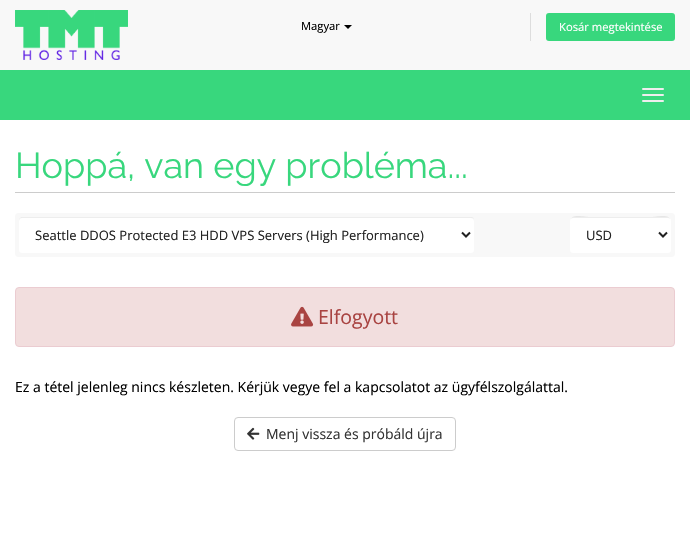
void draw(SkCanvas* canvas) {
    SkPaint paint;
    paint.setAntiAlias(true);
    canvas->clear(0xFFF8F8F8);
    canvas->drawImageRect(SkImages::DeferredFromEncodedData(SkData::MakeFromFileName("img1.png")), SkRect::MakeXYWH(15, 10, 113, 50), SkSamplingOptions());
    SkFont font1(fontMgr->matchFamilyStyle("Open Sans", SkFontStyle::Normal()), 11.25f);
    font1.setSubpixel(true);
    paint.setColor(0xFF000000);
    canvas->drawString("Magyar", 301, 30, font1, paint);
    canvas->drawPath(SkPathBuilder().moveTo(344, 25).lineTo(352, 25).lineTo(348, 29).close().detach(), paint);
    paint.setColor(0xFFDDDDDD);
    canvas->drawRect(SkRect::MakeXYWH(530, 13, 1, 28), paint);
    paint.setColor(0xFF38D77D);
    canvas->drawRoundRect(SkRect::MakeXYWH(546, 13, 129, 28), 3, 3, paint);
    paint.setColor(0xFFFFFFFF);
    canvas->drawString("Kosár megtekintése", 559, 31, font1, paint);
    paint.setColor(0xFF38D77D);
    canvas->drawRect(SkRect::MakeXYWH(0, 70, 690, 50), paint);
    paint.setColor(0xFFEEEEEE);
    canvas->drawRoundRect(SkRect::MakeXYWH(642, 88, 22, 2), 1, 1, paint);
    canvas->drawRoundRect(SkRect::MakeXYWH(642, 94, 22, 2), 1, 1, paint);
    canvas->drawRoundRect(SkRect::MakeXYWH(642, 100, 22, 2), 1, 1, paint);
    paint.setColor(0xFFFFFFFF);
    canvas->drawRect(SkRect::MakeXYWH(0, 120, 690, 439), paint);
    paint.setColor(0xFFCCCCCC);
    canvas->drawRect(SkRect::MakeXYWH(15, 192, 660, 1), paint);
    SkFont font2(fontMgr->matchFamilyStyle("Raleway", SkFontStyle::Normal()), 36);
    font2.setSubpixel(true);
    paint.setColor(0xFF38D77D);
    canvas->drawString("Hoppá, van egy probléma...", 15, 178, font2, paint);
    paint.setColor(0xFFF8F8F8);
    canvas->drawRoundRect(SkRect::MakeXYWH(15, 213, 660, 44), 4, 4, paint);
    paint.setColor(0xFFFFFFFF);
    canvas->drawRoundRect(SkRect::MakeXYWH(19, 217, 455, 36), 3, 3, paint);
    paint.setColor(0x12000000);
    canvas->drawPath(SkPathBuilder().moveTo(22, 218).lineTo(471, 218).cubicTo(473, 218, 474, 219, 474, 221).cubicTo(474, 219, 474, 218, 472, 217).lineTo(21, 217).lineTo(19, 219).lineTo(19, 221).cubicTo(19, 219, 20, 218, 22, 218).close().detach(), paint);
    paint.setStyle(SkPaint::kStroke_Style);
    paint.setStrokeWidth(2);
    paint.setColor(0xFF222222);
    canvas->drawPath(SkPathBuilder().moveTo(462, 232.5f).lineTo(466, 236.5f).lineTo(470, 232.5f).detach(), paint);
    SkFont font3(fontMgr->matchFamilyStyle("Open Sans", SkFontStyle::Normal()), 13);
    font3.setSubpixel(true);
    paint.setStyle(SkPaint::kFill_Style);
    canvas->drawString("Seattle DDOS Protected E3 HDD VPS Servers (High Performance)", 35, 240, font3, paint);
    paint.setColor(0xFFFFFFFF);
    canvas->drawRoundRect(SkRect::MakeXYWH(570, 217, 101, 36), 3, 3, paint);
    paint.setColor(0x12000000);
    canvas->drawPath(SkPathBuilder().moveTo(573, 218).lineTo(668, 218).cubicTo(670, 218, 671, 219, 671, 221).cubicTo(671, 213, 655, 217, 652, 217).lineTo(589, 217).cubicTo(586, 217, 570, 213, 570, 221).cubicTo(570, 219, 571, 218, 573, 218).close().detach(), paint);
    paint.setStyle(SkPaint::kStroke_Style);
    paint.setColor(0xFF222222);
    canvas->drawPath(SkPathBuilder().moveTo(659, 232.5f).lineTo(663, 236.5f).lineTo(667, 232.5f).detach(), paint);
    paint.setStyle(SkPaint::kFill_Style);
    canvas->drawString("USD", 586, 240, font3, paint);
    paint.setColor(0xFFF2DEDE);
    canvas->drawRoundRect(SkRect::MakeXYWH(15.5f, 287.5f, 659, 59), 3.5f, 3.5f, paint);
    paint.setStyle(SkPaint::kStroke_Style);
    paint.setStrokeWidth(1);
    paint.setColor(0xFFEBCCD1);
    canvas->drawRoundRect(SkRect::MakeXYWH(15.5f, 287.5f, 659, 59), 3.5f, 3.5f, paint);
    canvas->drawImageRect(SkImages::DeferredFromEncodedData(SkData::MakeFromFileName("img2.png")), SkRect::MakeXYWH(291, 306, 23, 21), SkSamplingOptions());
    SkFont font4(fontMgr->matchFamilyStyle("Open Sans", SkFontStyle::Normal()), 19.5f);
    font4.setSubpixel(true);
    paint.setStyle(SkPaint::kFill_Style);
    paint.setColor(0xFFA94442);
    canvas->drawString("Elfogyott", 318, 324, font4, paint);
    SkFont font5(fontMgr->matchFamilyStyle("Open Sans", SkFontStyle::Normal()), 14);
    font5.setSubpixel(true);
    paint.setColor(0xFF000000);
    canvas->drawString("Ez a tétel jelenleg nincs készleten. Kérjük vegye fel a kapcsolatot az ügyfélszolgálattal.", 15, 392, font5, paint);
    paint.setStyle(SkPaint::kStroke_Style);
    paint.setColor(0xFFCCCCCC);
    canvas->drawRoundRect(SkRect::MakeXYWH(234.5f, 417.5f, 221, 33), 3.5f, 3.5f, paint);
    canvas->drawImageRect(SkImages::DeferredFromEncodedData(SkData::MakeFromFileName("img3.png")), SkRect::MakeXYWH(247, 427, 13, 13), SkSamplingOptions());
    paint.setStyle(SkPaint::kFill_Style);
    paint.setColor(0xFF333333);
    canvas->drawString("Menj vissza és próbáld újra", 266, 439, font5, paint);
}
